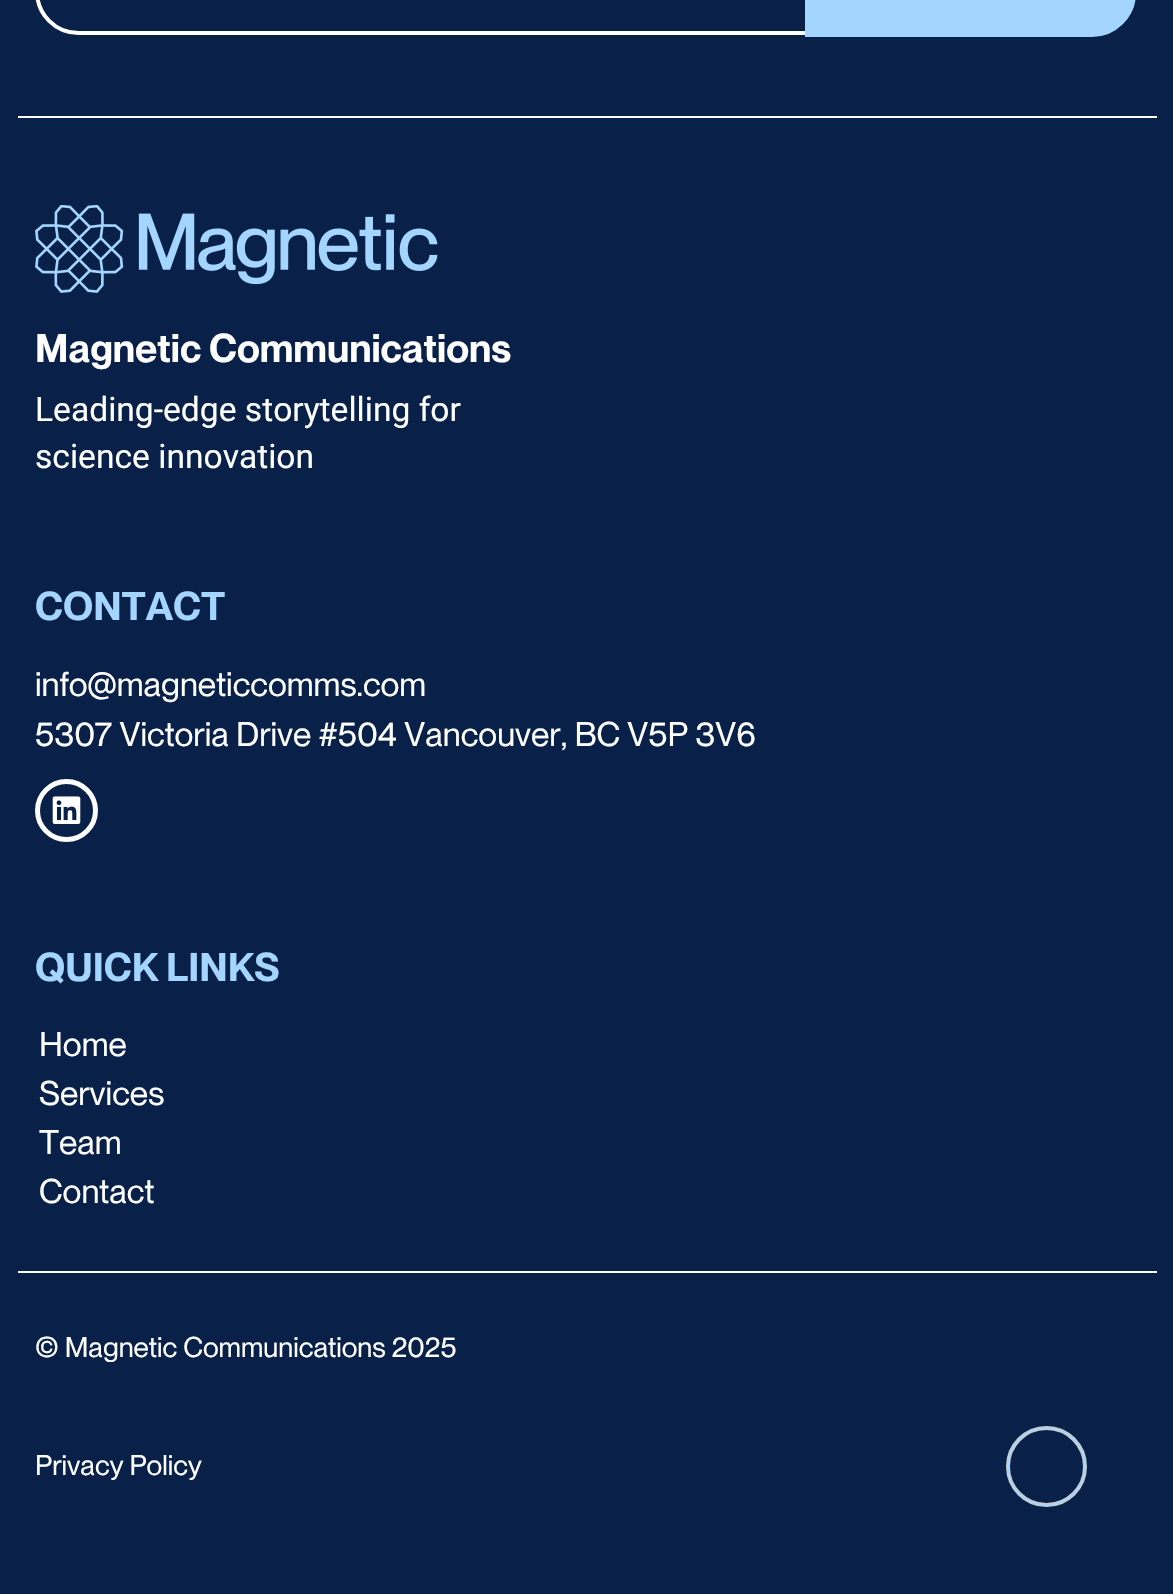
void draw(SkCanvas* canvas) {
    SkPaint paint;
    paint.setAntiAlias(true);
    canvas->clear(0xFF092149);
    paint.setStyle(SkPaint::kStroke_Style);
    paint.setStrokeWidth(4);
    paint.setColor(0xFFFFFFFF);
    canvas->drawPath(SkPathBuilder().moveTo(78.5f, -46).lineTo(807, -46).lineTo(807, 33).lineTo(78.5f, 33).cubicTo(55.5f, 33, 37, 14.5f, 37, -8.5f).lineTo(37, -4.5f).cubicTo(37, -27.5f, 55.5f, -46, 78.5f, -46).close().detach(), paint);
    paint.setStyle(SkPaint::kFill_Style);
    paint.setColor(0xFFA4D5FF);
    canvas->drawPath(SkPathBuilder().moveTo(807, -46).lineTo(1092, -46).cubicTo(1115, -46, 1134, -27, 1134, -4).lineTo(1134, -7).cubicTo(1134, 16, 1115, 35, 1092, 35).lineTo(807, 35).close().detach(), paint);
    paint.setStyle(SkPaint::kStroke_Style);
    canvas->drawPath(SkPathBuilder().moveTo(807, -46).lineTo(1092, -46).cubicTo(1115, -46, 1134, -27, 1134, -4).lineTo(1134, -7).cubicTo(1134, 16, 1115, 35, 1092, 35).lineTo(807, 35).close().detach(), paint);
    paint.setStyle(SkPaint::kFill_Style);
    paint.setColor(0xFFFFFFFF);
    canvas->drawRect(SkRect::MakeXYWH(18, 116, 1139, 2), paint);
    canvas->drawImageRect(SkImages::DeferredFromEncodedData(SkData::MakeFromFileName("img1.png")), SkRect::MakeXYWH(35, 205, 403, 88), SkSamplingOptions());
    SkFont font1(fontMgr->matchFamilyStyle("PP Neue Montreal", SkFontStyle(600, SkFontStyle::kNormal_Width, SkFontStyle::kUpright_Slant)), 39.25f);
    font1.setSubpixel(true);
    canvas->drawString("Magnetic Communications", 35, 362, font1, paint);
    SkFont font2(fontMgr->matchFamilyStyle("Roboto", SkFontStyle::Normal()), 33.6f);
    font2.setSubpixel(true);
    canvas->drawString("Leading-edge storytelling for", 35, 421, font2, paint);
    canvas->drawString("science innovation", 35, 468, font2, paint);
    paint.setColor(0xFFA4D5FF);
    canvas->drawString("CONTACT", 35, 620, font1, paint);
    SkFont font3(fontMgr->matchFamilyStyle("PP Neue Montreal", SkFontStyle::Normal()), 33.6f);
    font3.setSubpixel(true);
    paint.setColor(0xFFFFFFFF);
    canvas->drawString("info@magneticcomms.com", 35, 696, font3, paint);
    canvas->drawString("5307 Victoria Drive #504 Vancouver, BC V5P 3V6", 35, 746, font3, paint);
    paint.setStyle(SkPaint::kStroke_Style);
    paint.setStrokeWidth(5);
    canvas->drawCircle(66.5f, 810.5f, 29, paint);
    canvas->drawImageRect(SkImages::DeferredFromEncodedData(SkData::MakeFromFileName("img2.png")), SkRect::MakeXYWH(52, 796, 29, 28), SkSamplingOptions());
    paint.setStyle(SkPaint::kFill_Style);
    paint.setColor(0xFFA4D5FF);
    canvas->drawString("QUICK LINKS", 35, 981, font1, paint);
    paint.setColor(0xFFFFFFFF);
    canvas->drawString("Home", 39, 1056, font3, paint);
    canvas->drawString("Services", 39, 1105, font3, paint);
    canvas->drawString("Team", 39, 1154, font3, paint);
    canvas->drawString("Contact", 39, 1203, font3, paint);
    canvas->drawRect(SkRect::MakeXYWH(18, 1271, 1139, 2), paint);
    SkFont font4(fontMgr->matchFamilyStyle("PP Neue Montreal", SkFontStyle::Normal()), 28);
    font4.setSubpixel(true);
    canvas->drawString("© Magnetic Communications 2025", 35, 1357, font4, paint);
    canvas->drawString("Privacy Policy", 35, 1475, font4, paint);
    paint.setStyle(SkPaint::kStroke_Style);
    paint.setStrokeWidth(4);
    paint.setColor(0xFFCCCCCC);
    canvas->drawCircle(1046.5f, 1466.5f, 38.5f, paint);
    paint.setStrokeWidth(1.6f);
    paint.setColor(0xFFA4D5FF);
    canvas->drawPath(SkPathBuilder().moveTo(1046.5f, 1428).cubicTo(1068, 1428, 1085, 1445, 1085, 1466.5f).cubicTo(1085, 1488, 1068, 1505, 1046.5f, 1505).cubicTo(1025, 1505, 1008, 1488, 1008, 1466.5f).cubicTo(1008, 1445, 1025, 1428, 1046.5f, 1428).detach(), paint);
}
